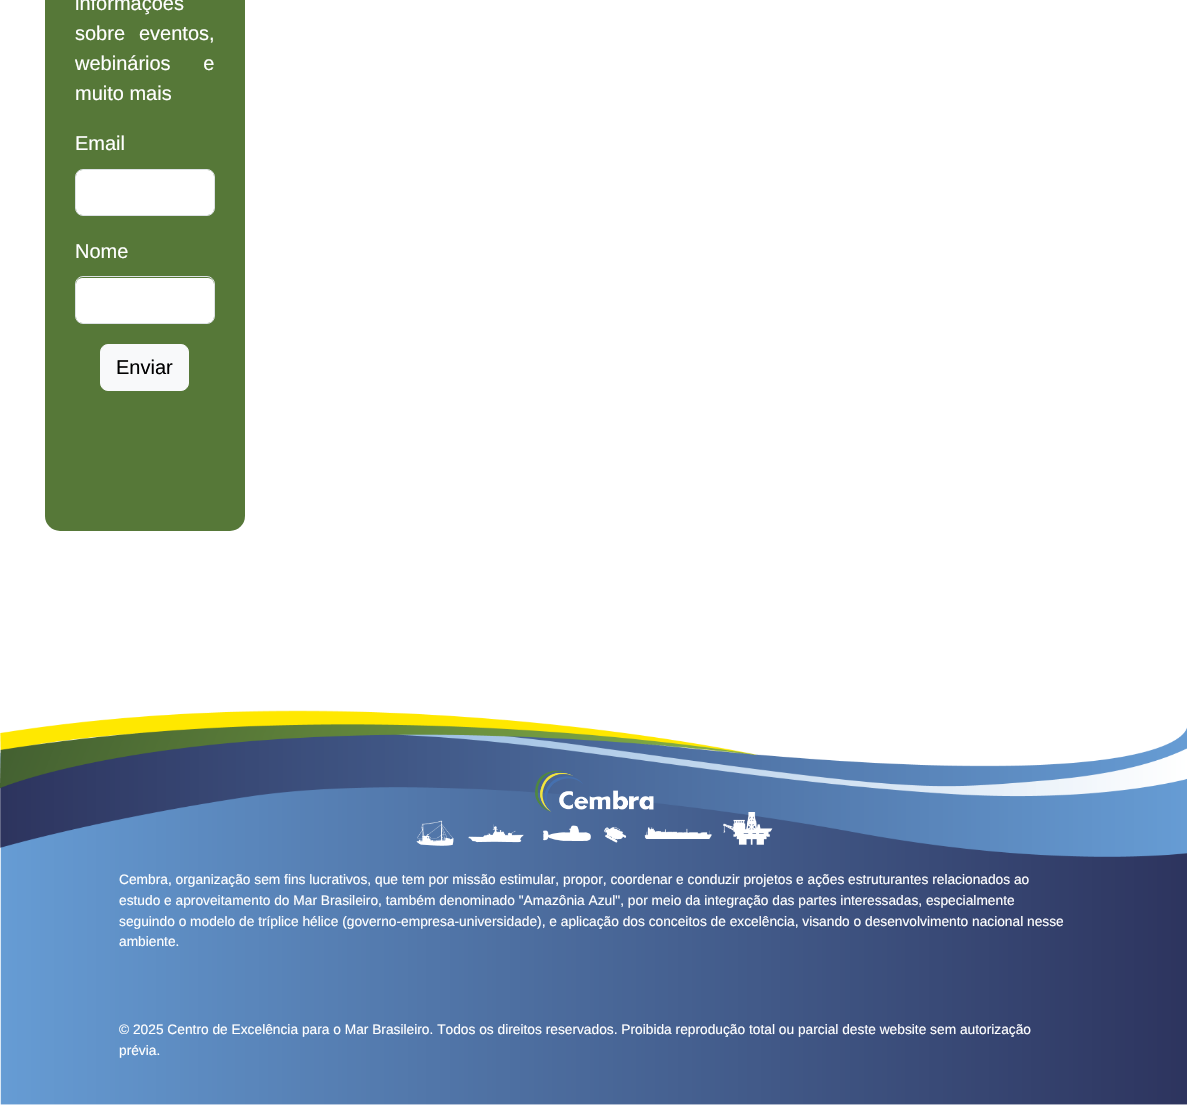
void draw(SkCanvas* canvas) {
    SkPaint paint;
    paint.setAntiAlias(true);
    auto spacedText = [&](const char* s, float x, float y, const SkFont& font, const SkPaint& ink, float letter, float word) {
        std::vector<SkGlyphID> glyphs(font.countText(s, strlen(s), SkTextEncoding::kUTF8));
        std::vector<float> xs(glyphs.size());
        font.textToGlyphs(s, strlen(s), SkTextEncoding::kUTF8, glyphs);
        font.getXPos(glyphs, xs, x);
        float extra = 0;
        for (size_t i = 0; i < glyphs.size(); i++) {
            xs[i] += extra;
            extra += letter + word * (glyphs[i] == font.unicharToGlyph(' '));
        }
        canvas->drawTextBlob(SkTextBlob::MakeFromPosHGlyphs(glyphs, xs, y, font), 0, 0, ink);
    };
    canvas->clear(0xFFFFFFFF);
    paint.setColor(0xFF567838);
    canvas->drawRoundRect(SkRect::MakeXYWH(45, -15, 200, 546), 15, 15, paint);
    SkFont font1(fontMgr->matchFamilyStyle("Liberation Sans", SkFontStyle::Normal()), 20);
    font1.setSubpixel(true);
    paint.setColor(0xFFFFFFFF);
    canvas->drawString("informações", 75, 10, font1, paint);
    canvas->drawString("sobre", 75, 40, font1, paint);
    canvas->drawString("eventos,", 139, 40, font1, paint);
    spacedText("webinários e", 75, 70, font1, paint, 0, 27);
    canvas->drawString("muito mais", 75, 100, font1, paint);
    canvas->drawString("Email", 75, 150, font1, paint);
    canvas->drawRoundRect(SkRect::MakeXYWH(76, 170, 138, 45), 6, 6, paint);
    paint.setStyle(SkPaint::kStroke_Style);
    paint.setStrokeWidth(1);
    paint.setColor(0xFFDEE2E6);
    canvas->drawRoundRect(SkRect::MakeXYWH(75.5f, 169.5f, 139, 46), 7.5f, 7.5f, paint);
    paint.setStyle(SkPaint::kFill_Style);
    paint.setColor(0xFFFFFFFF);
    canvas->drawString("Nome", 75, 258, font1, paint);
    canvas->drawRoundRect(SkRect::MakeXYWH(76, 278, 138, 45), 6, 6, paint);
    paint.setStyle(SkPaint::kStroke_Style);
    paint.setColor(0xFFDEE2E6);
    canvas->drawRoundRect(SkRect::MakeXYWH(75.5f, 276.5f, 139, 47), 7.5f, 7.5f, paint);
    paint.setStyle(SkPaint::kFill_Style);
    paint.setColor(0xFFF8F9FA);
    canvas->drawRoundRect(SkRect::MakeXYWH(100.5f, 344.5f, 88, 46), 7.5f, 7.5f, paint);
    paint.setStyle(SkPaint::kStroke_Style);
    canvas->drawRoundRect(SkRect::MakeXYWH(100.5f, 344.5f, 88, 46), 7.5f, 7.5f, paint);
    paint.setStyle(SkPaint::kFill_Style);
    paint.setColor(0xFF000000);
    canvas->drawString("Enviar", 116, 374, font1, paint);
    canvas->drawImageRect(SkImages::DeferredFromEncodedData(SkData::MakeFromFileName("img1.png")), SkRect::MakeXYWH(0, 710, 1187, 395), SkSamplingOptions());
    canvas->drawImageRect(SkImages::DeferredFromEncodedData(SkData::MakeFromFileName("img2.png")), SkRect::MakeXYWH(535, 770, 119, 42), SkSamplingOptions());
    canvas->drawImageRect(SkImages::DeferredFromEncodedData(SkData::MakeFromFileName("img3.png")), SkRect::MakeXYWH(416, 812, 357, 34), SkSamplingOptions());
    SkFont font2(fontMgr->matchFamilyStyle("Liberation Sans", SkFontStyle::Normal()), 13.75f);
    font2.setSubpixel(true);
    paint.setColor(0xFFFFFFFF);
    canvas->drawString("Cembra, organização sem fins lucrativos, que tem por missão estimular, propor, coordenar e conduzir projetos e ações estruturantes relacionados ao", 119, 884, font2, paint);
    canvas->drawString("estudo e aproveitamento do Mar Brasileiro, também denominado \"Amazônia Azul\", por meio da integração das partes interessadas, especialmente", 119, 905, font2, paint);
    canvas->drawString("seguindo o modelo de tríplice hélice (governo-empresa-universidade), e aplicação dos conceitos de excelência, visando o desenvolvimento nacional nesse", 119, 926, font2, paint);
    canvas->drawString("ambiente.", 119, 946, font2, paint);
    canvas->drawString("© 2025 Centro de Excelência para o Mar Brasileiro. Todos os direitos reservados. Proibida reprodução total ou parcial deste website sem autorização", 119, 1034, font2, paint);
    canvas->drawString("prévia.", 119, 1055, font2, paint);
}
